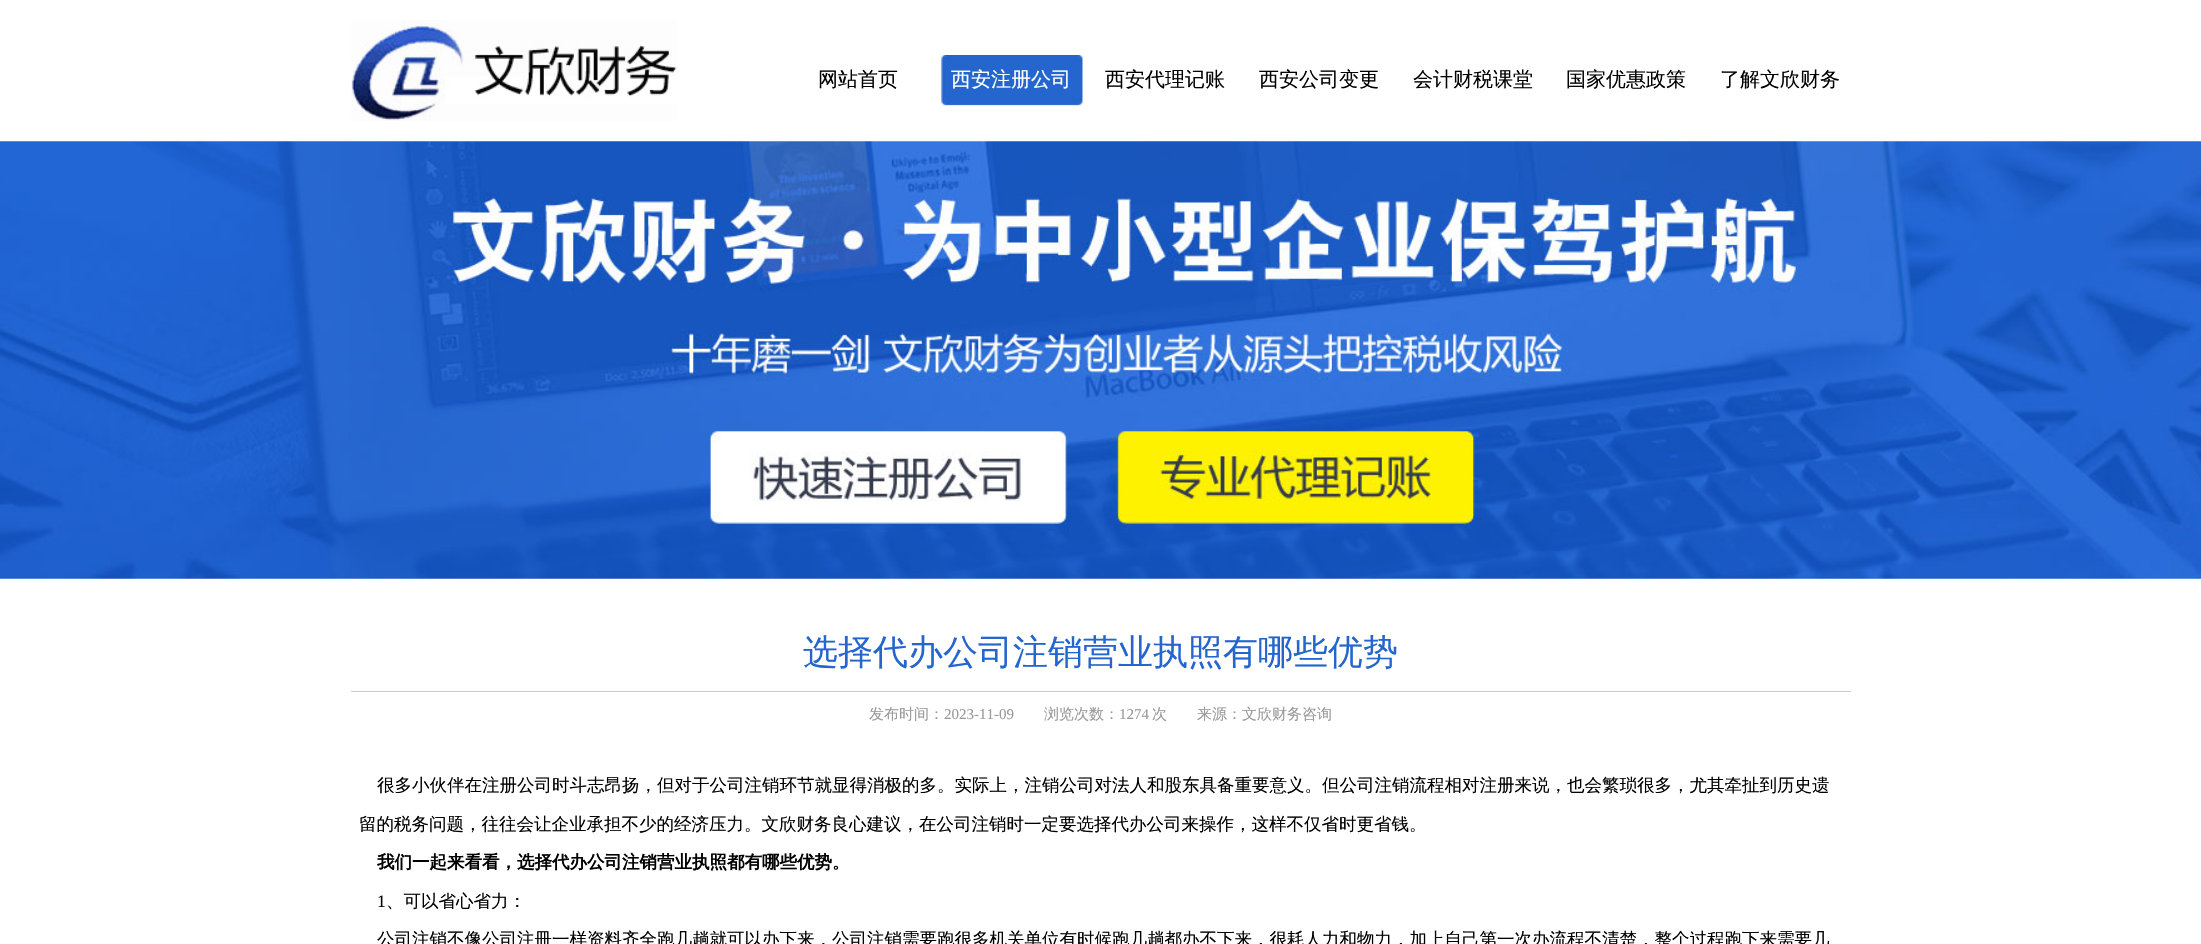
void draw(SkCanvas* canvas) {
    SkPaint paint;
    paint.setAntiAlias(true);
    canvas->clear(0xFFFFFFFF);
    canvas->drawImageRect(SkImages::DeferredFromEncodedData(SkData::MakeFromFileName("img1.png")), SkRect::MakeXYWH(351, 20, 326, 101), SkSamplingOptions());
    SkFont font1(fontMgr->matchFamilyStyle("WenQuanYi Zen Hei", SkFontStyle(500, SkFontStyle::kNormal_Width, SkFontStyle::kUpright_Slant)), 20);
    font1.setSubpixel(true);
    paint.setColor(0xFF000000);
    canvas->drawString("网站首页", 818, 86, font1, paint);
    canvas->drawImageRect(SkImages::DeferredFromEncodedData(SkData::MakeFromFileName("img2.png")), SkRect::MakeXYWH(941, 55, 142, 51), SkSamplingOptions());
    paint.setColor(0xFFFFFFFF);
    canvas->drawString("西安注册公司", 951, 86, font1, paint);
    paint.setColor(0xFF000000);
    canvas->drawString("西安代理记账", 1105, 86, font1, paint);
    canvas->drawString("西安公司变更", 1259, 86, font1, paint);
    canvas->drawString("会计财税课堂", 1413, 86, font1, paint);
    canvas->drawString("国家优惠政策", 1566, 86, font1, paint);
    canvas->drawString("了解文欣财务", 1720, 86, font1, paint);
    canvas->drawImageRect(SkImages::DeferredFromEncodedData(SkData::MakeFromFileName("img3.png")), SkRect::MakeXYWH(0, 141, 2201, 438), SkSamplingOptions());
    paint.setColor(0xFFCCCCCC);
    canvas->drawRect(SkRect::MakeXYWH(351, 691, 1500, 1), paint);
    SkFont font2(fontMgr->matchFamilyStyle("WenQuanYi Zen Hei", SkFontStyle(500, SkFontStyle::kNormal_Width, SkFontStyle::kUpright_Slant)), 35);
    font2.setSubpixel(true);
    paint.setColor(0xFF2465CE);
    canvas->drawString("选择代办公司注销营业执照有哪些优势", 803, 664, font2, paint);
    SkFont font3(fontMgr->matchFamilyStyle("WenQuanYi Zen Hei", SkFontStyle(500, SkFontStyle::kNormal_Width, SkFontStyle::kUpright_Slant)), 15);
    font3.setSubpixel(true);
    paint.setColor(0xFF999999);
    canvas->drawString("发布时间：", 869, 719, font3, paint);
    SkFont font4(fontMgr->matchFamilyStyle("Liberation Serif", SkFontStyle::Normal()), 15);
    font4.setSubpixel(true);
    canvas->drawString("2023-11-09", 944, 719, font4, paint);
    canvas->drawString("浏览次数：", 1044, 719, font3, paint);
    canvas->drawString("1274", 1119, 719, font4, paint);
    canvas->drawString("次　　来源：文欣财务咨询", 1152, 719, font3, paint);
    SkFont font5(fontMgr->matchFamilyStyle("WenQuanYi Zen Hei", SkFontStyle(500, SkFontStyle::kNormal_Width, SkFontStyle::kUpright_Slant)), 17.5f);
    font5.setSubpixel(true);
    paint.setColor(0xFF000000);
    canvas->drawString("很多小伙伴在注册公司时斗志昂扬，但对于公司注销环节就显得消极的多。实际上，注销公司对法人和股东具备重要意义。但公司注销流程相对注册来说，也会繁琐很多，尤其牵扯到历史遗", 377, 791, font5, paint);
    canvas->drawString("留的税务问题，往往会让企业承担不少的经济压力。文欣财务良心建议，在公司注销时一定要选择代办公司来操作，这样不仅省时更省钱。", 359, 830, font5, paint);
    SkFont font6(fontMgr->matchFamilyStyle("WenQuanYi Zen Hei", SkFontStyle::Bold()), 17.5f);
    font6.setSubpixel(true);
    canvas->drawString("我们一起来看看，选择代办公司注销营业执照都有哪些优势。", 377, 868, font6, paint);
    SkFont font7(fontMgr->matchFamilyStyle("Liberation Serif", SkFontStyle::Normal()), 17.5f);
    font7.setSubpixel(true);
    canvas->drawString("1", 377, 907, font7, paint);
    canvas->drawString("、可以省心省力：", 386, 907, font5, paint);
    canvas->drawString("公司注销不像公司注冊一样资料齐全跑几趟就可以办下来，公司注销需要跑很多机关单位有时候跑几趟都办不下来，很耗人力和物力，加上自己第一次办流程不清楚，整个过程跑下来需要几", 377, 945, font5, paint);
}
